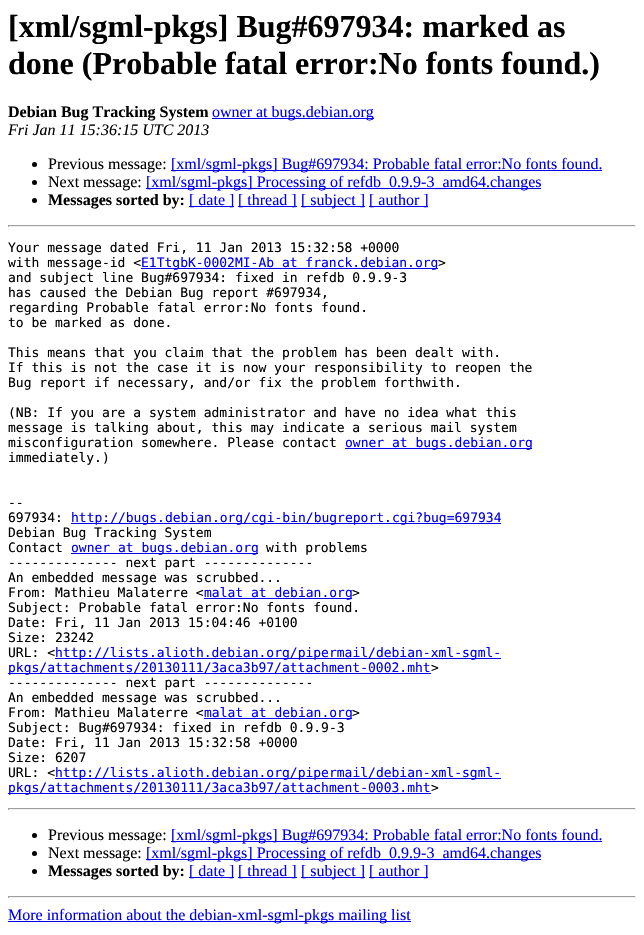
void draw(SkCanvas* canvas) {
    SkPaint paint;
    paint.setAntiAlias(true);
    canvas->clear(0xFFFFFFFF);
    SkFont font1(fontMgr->matchFamilyStyle("Liberation Serif", SkFontStyle::Bold()), 32);
    font1.setSubpixel(true);
    paint.setColor(0xFF000000);
    canvas->drawString("[xml/sgml-pkgs] Bug#697934: marked as", 8, 37, font1, paint);
    canvas->drawString("done (Probable fatal error:No fonts found.)", 8, 74, font1, paint);
    SkFont font2(fontMgr->matchFamilyStyle("Liberation Serif", SkFontStyle::Bold()), 16);
    font2.setSubpixel(true);
    canvas->drawString("Debian Bug Tracking System", 8, 117, font2, paint);
    paint.setColor(0xFF0000EE);
    canvas->drawRect(SkRect::MakeXYWH(212, 118, 162, 1), paint);
    SkFont font3(fontMgr->matchFamilyStyle("Liberation Serif", SkFontStyle::Normal()), 16);
    font3.setSubpixel(true);
    canvas->drawString("owner at bugs.debian.org", 212, 117, font3, paint);
    SkFont font4(fontMgr->matchFamilyStyle("Liberation Serif", SkFontStyle::Italic()), 16);
    font4.setSubpixel(true);
    paint.setColor(0xFF000000);
    canvas->drawString("Fri Jan 11 15:36:15 UTC 2013", 8, 135, font4, paint);
    canvas->drawCircle(34.5f, 164.5f, 2.5f, paint);
    canvas->drawString("Previous message:", 48, 169, font3, paint);
    paint.setColor(0xFF0000EE);
    canvas->drawRect(SkRect::MakeXYWH(171, 170, 431, 1), paint);
    canvas->drawString("[xml/sgml-pkgs] Bug#697934: Probable fatal error:No fonts found.", 171, 169, font3, paint);
    paint.setColor(0xFF000000);
    canvas->drawCircle(34.5f, 182.5f, 2.5f, paint);
    canvas->drawString("Next message:", 48, 187, font3, paint);
    paint.setColor(0xFF0000EE);
    canvas->drawRect(SkRect::MakeXYWH(146, 188, 395, 1), paint);
    canvas->drawString("[xml/sgml-pkgs] Processing of refdb_0.9.9-3_amd64.changes", 146, 187, font3, paint);
    paint.setColor(0xFF000000);
    canvas->drawCircle(34.5f, 200.5f, 2.5f, paint);
    canvas->drawString("Messages sorted by:", 48, 205, font2, paint);
    paint.setColor(0xFF0000EE);
    canvas->drawRect(SkRect::MakeXYWH(189, 206, 45, 1), paint);
    canvas->drawString("[ date ]", 189, 205, font3, paint);
    canvas->drawRect(SkRect::MakeXYWH(238, 206, 59, 1), paint);
    canvas->drawString("[ thread ]", 238, 205, font3, paint);
    canvas->drawRect(SkRect::MakeXYWH(301, 206, 64, 1), paint);
    canvas->drawString("[ subject ]", 301, 205, font3, paint);
    canvas->drawRect(SkRect::MakeXYWH(369, 206, 59, 1), paint);
    canvas->drawString("[ author ]", 369, 205, font3, paint);
    paint.setColor(0xFF9F9F9F);
    canvas->drawRect(SkRect::MakeXYWH(8, 225, 628, 1), paint);
    paint.setColor(0xFFEEEEEE);
    canvas->drawRect(SkRect::MakeXYWH(635, 225, 1, 2), paint);
    canvas->drawRect(SkRect::MakeXYWH(8, 226, 628, 1), paint);
    paint.setColor(0xFF9F9F9F);
    canvas->drawRect(SkRect::MakeXYWH(8, 225, 1, 2), paint);
    SkFont font5(fontMgr->matchFamilyStyle("DejaVu Sans Mono", SkFontStyle::Normal()), 13);
    font5.setSubpixel(true);
    paint.setColor(0xFF000000);
    canvas->drawString("Your message dated Fri, 11 Jan 2013 15:32:58 +0000", 8, 252, font5, paint);
    canvas->drawString("with message-id <", 8, 267, font5, paint);
    paint.setColor(0xFF0000EE);
    canvas->drawRect(SkRect::MakeXYWH(141, 268, 297, 1), paint);
    canvas->drawString("E1TtgbK-0002MI-Ab at franck.debian.org", 141, 267, font5, paint);
    paint.setColor(0xFF000000);
    canvas->drawString(">", 438, 267, font5, paint);
    canvas->drawString("and subject line Bug#697934: fixed in refdb 0.9.9-3", 8, 282, font5, paint);
    canvas->drawString("has caused the Debian Bug report #697934,", 8, 297, font5, paint);
    canvas->drawString("regarding Probable fatal error:No fonts found.", 8, 312, font5, paint);
    canvas->drawString("to be marked as done.", 8, 327, font5, paint);
    canvas->drawString("This means that you claim that the problem has been dealt with.", 8, 357, font5, paint);
    canvas->drawString("If this is not the case it is now your responsibility to reopen the", 8, 372, font5, paint);
    canvas->drawString("Bug report if necessary, and/or fix the problem forthwith.", 8, 387, font5, paint);
    canvas->drawString("(NB: If you are a system administrator and have no idea what this", 8, 417, font5, paint);
    canvas->drawString("message is talking about, this may indicate a serious mail system", 8, 432, font5, paint);
    canvas->drawString("misconfiguration somewhere. Please contact", 8, 447, font5, paint);
    paint.setColor(0xFF0000EE);
    canvas->drawRect(SkRect::MakeXYWH(345, 448, 187, 1), paint);
    canvas->drawString("owner at bugs.debian.org", 345, 447, font5, paint);
    paint.setColor(0xFF000000);
    canvas->drawString("immediately.)", 8, 462, font5, paint);
    canvas->drawString("--", 8, 507, font5, paint);
    canvas->drawString("697934:", 8, 522, font5, paint);
    paint.setColor(0xFF0000EE);
    canvas->drawRect(SkRect::MakeXYWH(71, 523, 430, 1), paint);
    canvas->drawString("http://bugs.debian.org/cgi-bin/bugreport.cgi?bug=697934", 71, 522, font5, paint);
    paint.setColor(0xFF000000);
    canvas->drawString("Debian Bug Tracking System", 8, 537, font5, paint);
    canvas->drawString("Contact", 8, 552, font5, paint);
    paint.setColor(0xFF0000EE);
    canvas->drawRect(SkRect::MakeXYWH(71, 553, 187, 1), paint);
    canvas->drawString("owner at bugs.debian.org", 71, 552, font5, paint);
    paint.setColor(0xFF000000);
    canvas->drawString("with problems", 266, 552, font5, paint);
    canvas->drawString("-------------- next part --------------", 8, 567, font5, paint);
    canvas->drawString("An embedded message was scrubbed...", 8, 582, font5, paint);
    canvas->drawString("From: Mathieu Malaterre <", 8, 597, font5, paint);
    paint.setColor(0xFF0000EE);
    canvas->drawRect(SkRect::MakeXYWH(204, 598, 148, 1), paint);
    canvas->drawString("malat at debian.org", 204, 597, font5, paint);
    paint.setColor(0xFF000000);
    canvas->drawString(">", 352, 597, font5, paint);
    canvas->drawString("Subject: Probable fatal error:No fonts found.", 8, 612, font5, paint);
    canvas->drawString("Date: Fri, 11 Jan 2013 15:04:46 +0100", 8, 627, font5, paint);
    canvas->drawString("Size: 23242", 8, 642, font5, paint);
    canvas->drawString("URL: <", 8, 657, font5, paint);
    paint.setColor(0xFF0000EE);
    canvas->drawRect(SkRect::MakeXYWH(55, 658, 446, 1), paint);
    canvas->drawString("http://lists.alioth.debian.org/pipermail/debian-xml-sgml-", 55, 657, font5, paint);
    canvas->drawRect(SkRect::MakeXYWH(8, 673, 423, 1), paint);
    canvas->drawString("pkgs/attachments/20130111/3aca3b97/attachment-0002.mht", 8, 672, font5, paint);
    paint.setColor(0xFF000000);
    canvas->drawString(">", 431, 672, font5, paint);
    canvas->drawString("-------------- next part --------------", 8, 687, font5, paint);
    canvas->drawString("An embedded message was scrubbed...", 8, 702, font5, paint);
    canvas->drawString("From: Mathieu Malaterre <", 8, 717, font5, paint);
    paint.setColor(0xFF0000EE);
    canvas->drawRect(SkRect::MakeXYWH(204, 718, 148, 1), paint);
    canvas->drawString("malat at debian.org", 204, 717, font5, paint);
    paint.setColor(0xFF000000);
    canvas->drawString(">", 352, 717, font5, paint);
    canvas->drawString("Subject: Bug#697934: fixed in refdb 0.9.9-3", 8, 732, font5, paint);
    canvas->drawString("Date: Fri, 11 Jan 2013 15:32:58 +0000", 8, 747, font5, paint);
    canvas->drawString("Size: 6207", 8, 762, font5, paint);
    canvas->drawString("URL: <", 8, 777, font5, paint);
    paint.setColor(0xFF0000EE);
    canvas->drawRect(SkRect::MakeXYWH(55, 778, 446, 1), paint);
    canvas->drawString("http://lists.alioth.debian.org/pipermail/debian-xml-sgml-", 55, 777, font5, paint);
    canvas->drawRect(SkRect::MakeXYWH(8, 793, 423, 1), paint);
    canvas->drawString("pkgs/attachments/20130111/3aca3b97/attachment-0003.mht", 8, 792, font5, paint);
    paint.setColor(0xFF000000);
    canvas->drawString(">", 431, 792, font5, paint);
    paint.setColor(0xFF9F9F9F);
    canvas->drawRect(SkRect::MakeXYWH(8, 808, 628, 1), paint);
    paint.setColor(0xFFEEEEEE);
    canvas->drawRect(SkRect::MakeXYWH(635, 808, 1, 2), paint);
    canvas->drawRect(SkRect::MakeXYWH(8, 809, 628, 1), paint);
    paint.setColor(0xFF9F9F9F);
    canvas->drawRect(SkRect::MakeXYWH(8, 808, 1, 2), paint);
    paint.setColor(0xFF000000);
    canvas->drawCircle(34.5f, 835.5f, 2.5f, paint);
    canvas->drawString("Previous message:", 48, 840, font3, paint);
    paint.setColor(0xFF0000EE);
    canvas->drawRect(SkRect::MakeXYWH(171, 841, 431, 1), paint);
    canvas->drawString("[xml/sgml-pkgs] Bug#697934: Probable fatal error:No fonts found.", 171, 840, font3, paint);
    paint.setColor(0xFF000000);
    canvas->drawCircle(34.5f, 853.5f, 2.5f, paint);
    canvas->drawString("Next message:", 48, 858, font3, paint);
    paint.setColor(0xFF0000EE);
    canvas->drawRect(SkRect::MakeXYWH(146, 859, 395, 1), paint);
    canvas->drawString("[xml/sgml-pkgs] Processing of refdb_0.9.9-3_amd64.changes", 146, 858, font3, paint);
    paint.setColor(0xFF000000);
    canvas->drawCircle(34.5f, 871.5f, 2.5f, paint);
    canvas->drawString("Messages sorted by:", 48, 876, font2, paint);
    paint.setColor(0xFF0000EE);
    canvas->drawRect(SkRect::MakeXYWH(189, 877, 45, 1), paint);
    canvas->drawString("[ date ]", 189, 876, font3, paint);
    canvas->drawRect(SkRect::MakeXYWH(238, 877, 59, 1), paint);
    canvas->drawString("[ thread ]", 238, 876, font3, paint);
    canvas->drawRect(SkRect::MakeXYWH(301, 877, 64, 1), paint);
    canvas->drawString("[ subject ]", 301, 876, font3, paint);
    canvas->drawRect(SkRect::MakeXYWH(369, 877, 59, 1), paint);
    canvas->drawString("[ author ]", 369, 876, font3, paint);
    paint.setColor(0xFF9F9F9F);
    canvas->drawRect(SkRect::MakeXYWH(8, 896, 628, 1), paint);
    paint.setColor(0xFFEEEEEE);
    canvas->drawRect(SkRect::MakeXYWH(635, 896, 1, 2), paint);
    canvas->drawRect(SkRect::MakeXYWH(8, 897, 628, 1), paint);
    paint.setColor(0xFF9F9F9F);
    canvas->drawRect(SkRect::MakeXYWH(8, 896, 1, 2), paint);
    paint.setColor(0xFF0000EE);
    canvas->drawRect(SkRect::MakeXYWH(8, 921, 403, 1), paint);
    canvas->drawString("More information about the debian-xml-sgml-pkgs mailing list", 8, 920, font3, paint);
}
